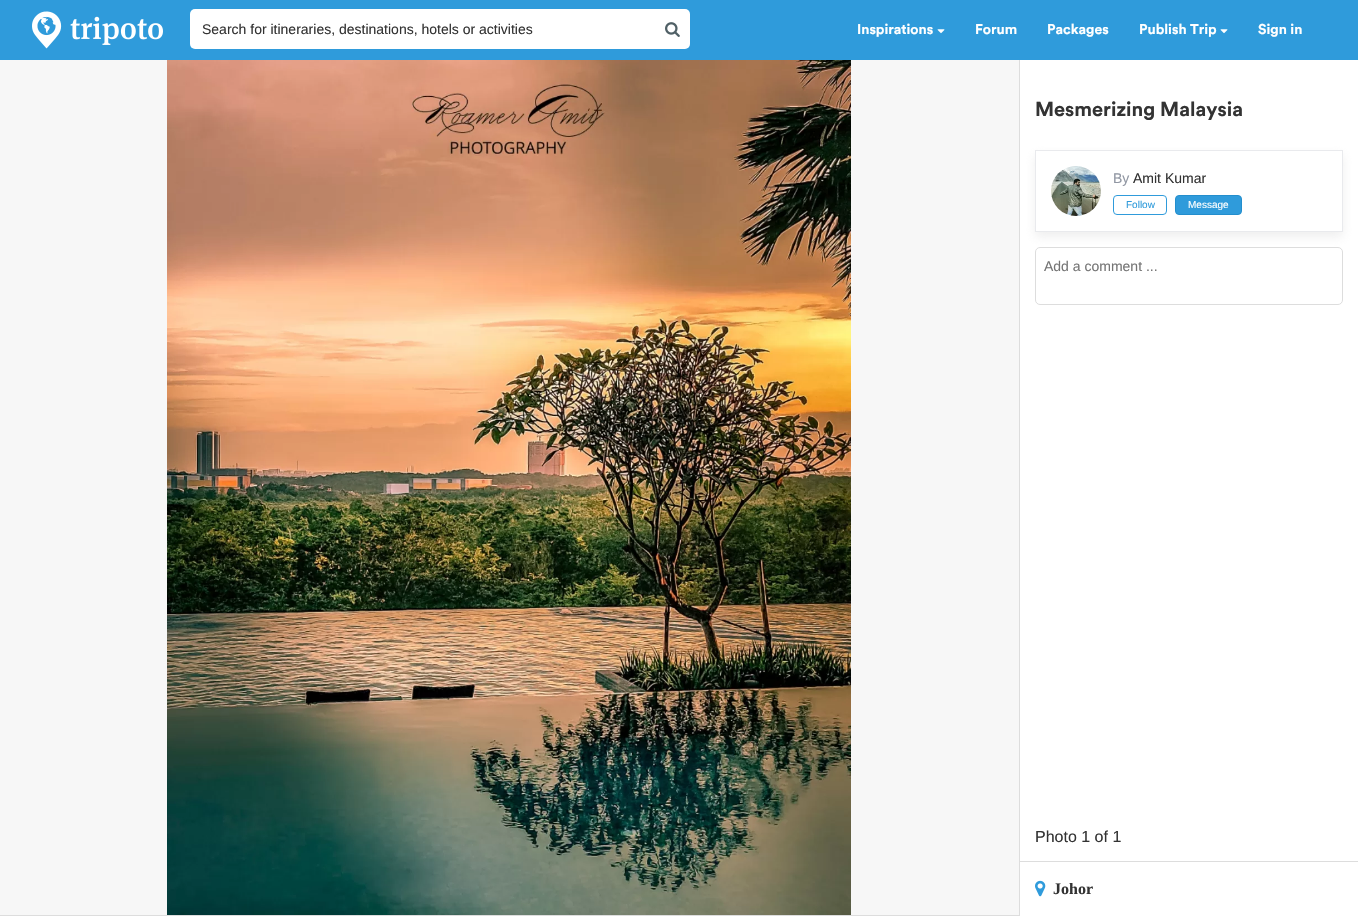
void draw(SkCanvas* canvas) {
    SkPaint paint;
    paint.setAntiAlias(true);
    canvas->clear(0xFFFFFFFF);
    paint.setColor(0xFF2F9BDB);
    canvas->drawRect(SkRect::MakeXYWH(0, 0, 1358, 60), paint);
    canvas->drawImageRect(SkImages::DeferredFromEncodedData(SkData::MakeFromFileName("img1.png")), SkRect::MakeXYWH(32, 11, 131, 38), SkSamplingOptions());
    paint.setColor(0xFFFFFFFF);
    canvas->drawRoundRect(SkRect::MakeXYWH(190, 9, 500, 40), 5, 5, paint);
    SkFont font1(fontMgr->matchFamilyStyle("Liberation Sans", SkFontStyle::Normal()), 14);
    font1.setSubpixel(true);
    paint.setColor(0xFF333333);
    canvas->drawString("Search for itineraries, destinations, hotels or activities", 202, 34, font1, paint);
    canvas->drawImageRect(SkImages::DeferredFromEncodedData(SkData::MakeFromFileName("img2.png")), SkRect::MakeXYWH(665, 22, 15, 15), SkSamplingOptions());
    SkFont font2(fontMgr->matchFamilyStyle("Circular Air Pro", SkFontStyle::Bold()), 14);
    font2.setSubpixel(true);
    paint.setColor(0xFFFFFFFF);
    canvas->drawString("Inspirations", 857, 34, font2, paint);
    canvas->drawImageRect(SkImages::DeferredFromEncodedData(SkData::MakeFromFileName("img3.png")), SkRect::MakeXYWH(937, 29, 8, 5), SkSamplingOptions());
    canvas->drawString("Forum", 975, 34, font2, paint);
    canvas->drawString("Packages", 1047, 34, font2, paint);
    canvas->drawString("Publish Trip", 1139, 34, font2, paint);
    canvas->drawImageRect(SkImages::DeferredFromEncodedData(SkData::MakeFromFileName("img3.png")), SkRect::MakeXYWH(1220, 29, 8, 5), SkSamplingOptions());
    canvas->drawString("Sign in", 1258, 34, font2, paint);
    paint.setColor(0xFFF7F7F7);
    canvas->drawRect(SkRect::MakeXYWH(0, 60, 1019, 855), paint);
    paint.setColor(0xFFDDDDDD);
    canvas->drawRect(SkRect::MakeXYWH(0, 915, 1019, 1), paint);
    canvas->drawImageRect(SkImages::DeferredFromEncodedData(SkData::MakeFromFileName("img4.png")), SkRect::MakeXYWH(167, 60, 684, 855), SkSamplingOptions());
    canvas->drawRect(SkRect::MakeXYWH(1019, 60, 1, 856), paint);
    SkFont font3(fontMgr->matchFamilyStyle("Circular Air Pro", SkFontStyle::Bold()), 20);
    font3.setSubpixel(true);
    paint.setColor(0xFF333333);
    canvas->drawString("Mesmerizing Malaysia", 1035, 116, font3, paint);
    canvas->save();
    canvas->clipPath(SkPathBuilder(SkPathFillType::kEvenOdd).moveTo(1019, 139).lineTo(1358, 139).lineTo(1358, 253).lineTo(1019, 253).close().moveTo(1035, 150).lineTo(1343, 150).lineTo(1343, 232).lineTo(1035, 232).close().detach(), true);
    paint.setColor(0x80DDDDDD);
    paint.setMaskFilter(SkMaskFilter::MakeBlur(kNormal_SkBlurStyle, 5));
    canvas->drawRect(SkRect::MakeXYWH(1035, 155, 308, 82), paint);
    paint.setMaskFilter(nullptr);
    canvas->restore();
    paint.setStyle(SkPaint::kStroke_Style);
    paint.setStrokeWidth(1);
    paint.setColor(0xFFE9EAED);
    canvas->drawRect(SkRect::MakeXYWH(1035.5f, 150.5f, 307, 81), paint);
    canvas->drawImageRect(SkImages::DeferredFromEncodedData(SkData::MakeFromFileName("img5.png")), SkRect::MakeXYWH(1051, 166, 50, 50), SkSamplingOptions());
    paint.setStyle(SkPaint::kFill_Style);
    paint.setColor(0xFF9197A3);
    canvas->drawString("By", 1113, 183, font1, paint);
    paint.setColor(0xFF333333);
    canvas->drawString("Amit Kumar", 1133, 183, font1, paint);
    paint.setStyle(SkPaint::kStroke_Style);
    paint.setColor(0xFF2F9BDB);
    canvas->drawRoundRect(SkRect::MakeXYWH(1113.5f, 195.5f, 53, 19), 3.5f, 3.5f, paint);
    SkFont font4(fontMgr->matchFamilyStyle("Liberation Sans", SkFontStyle::Normal()), 10);
    font4.setSubpixel(true);
    paint.setStyle(SkPaint::kFill_Style);
    canvas->drawString("Follow", 1126, 208, font4, paint);
    canvas->drawRoundRect(SkRect::MakeXYWH(1175.5f, 195.5f, 66, 19), 3.5f, 3.5f, paint);
    paint.setStyle(SkPaint::kStroke_Style);
    paint.setColor(0xFF238ECD);
    canvas->drawRoundRect(SkRect::MakeXYWH(1175.5f, 195.5f, 66, 19), 3.5f, 3.5f, paint);
    paint.setStyle(SkPaint::kFill_Style);
    paint.setColor(0xFFFFFFFF);
    canvas->drawString("Message", 1188, 208, font4, paint);
    paint.setStyle(SkPaint::kStroke_Style);
    paint.setColor(0xFFDDDDDD);
    canvas->drawRoundRect(SkRect::MakeXYWH(1035.5f, 247.5f, 307, 57), 4.5f, 4.5f, paint);
    paint.setStyle(SkPaint::kFill_Style);
    paint.setColor(0xFF757575);
    canvas->drawString("Add a comment ...", 1044, 271, font1, paint);
    paint.setColor(0xFFDDDDDD);
    canvas->drawRect(SkRect::MakeXYWH(1020, 861, 338, 1), paint);
    SkFont font5(fontMgr->matchFamilyStyle("Liberation Sans", SkFontStyle::Normal()), 16);
    font5.setSubpixel(true);
    paint.setColor(0xFF333333);
    canvas->drawString("Photo 1 of 1", 1035, 842, font5, paint);
    canvas->drawImageRect(SkImages::DeferredFromEncodedData(SkData::MakeFromFileName("img6.png")), SkRect::MakeXYWH(1035, 880, 11, 17), SkSamplingOptions());
    SkFont font6(fontMgr->matchFamilyStyle("Liberation Serif", SkFontStyle::Bold()), 16);
    font6.setSubpixel(true);
    canvas->drawString("Johor", 1053, 894, font6, paint);
}
